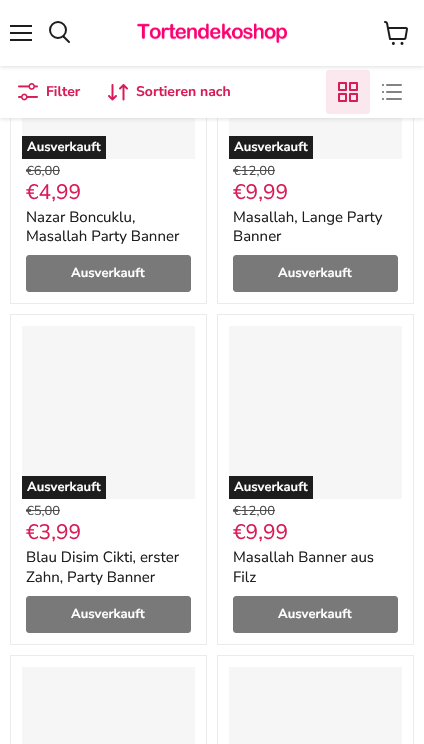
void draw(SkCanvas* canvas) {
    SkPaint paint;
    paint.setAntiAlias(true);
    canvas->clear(0xFFFFFFFF);
    paint.setStyle(SkPaint::kStroke_Style);
    paint.setStrokeWidth(1);
    paint.setColor(0xFFEBEBEB);
    canvas->drawRect(SkRect::MakeXYWH(10.5f, -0.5f, 196, 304), paint);
    paint.setStyle(SkPaint::kFill_Style);
    paint.setColor(0xFFF6F6F6);
    canvas->drawRect(SkRect::MakeXYWH(22, 118, 173, 41), paint);
    paint.setStyle(SkPaint::kStroke_Style);
    paint.setColor(0xFFEBEBEB);
    canvas->drawRect(SkRect::MakeXYWH(217.5f, -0.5f, 196, 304), paint);
    paint.setStyle(SkPaint::kFill_Style);
    paint.setColor(0xFFF6F6F6);
    canvas->drawRect(SkRect::MakeXYWH(229, 118, 173, 41), paint);
    paint.setColor(0x40808080);
    paint.setMaskFilter(SkMaskFilter::MakeBlur(kNormal_SkBlurStyle, 2));
    canvas->drawRect(SkRect::MakeXYWH(0, 67, 424, 52), paint);
    paint.setMaskFilter(nullptr);
    paint.setColor(0xFFFFFFFF);
    canvas->drawRect(SkRect::MakeXYWH(0, 66, 424, 52), paint);
    paint.setColor(0xFFFBE8EE);
    canvas->drawRoundRect(SkRect::MakeXYWH(326, 70, 44, 44), 3, 3, paint);
    paint.setColor(0x40808080);
    paint.setMaskFilter(SkMaskFilter::MakeBlur(kNormal_SkBlurStyle, 2));
    canvas->drawRect(SkRect::MakeXYWH(0, 1, 424, 66), paint);
    paint.setMaskFilter(nullptr);
    paint.setColor(0xFFFFFFFF);
    canvas->drawRect(SkRect::MakeXYWH(0, 0, 424, 66), paint);
    paint.setColor(0xFF1D1D1D);
    canvas->drawRect(SkRect::MakeXYWH(10, 25, 22, 2), paint);
    canvas->drawRect(SkRect::MakeXYWH(10, 32, 22, 2), paint);
    canvas->drawRect(SkRect::MakeXYWH(10, 39, 22, 2), paint);
    paint.setStyle(SkPaint::kStroke_Style);
    paint.setStrokeWidth(2);
    paint.setStrokeCap(SkPaint::kRound_Cap);
    canvas->drawPath(SkPathBuilder().moveTo(69, 42).lineTo(63.5f, 36.5f).detach(), paint);
    paint.setStrokeCap(SkPaint::kButt_Cap);
    canvas->drawCircle(58, 30, 8, paint);
    canvas->drawImageRect(SkImages::DeferredFromEncodedData(SkData::MakeFromFileName("img1.png")), SkRect::MakeXYWH(137, 23, 150, 20), SkSamplingOptions());
    canvas->drawImageRect(SkImages::DeferredFromEncodedData(SkData::MakeFromFileName("img2.png")), SkRect::MakeXYWH(384, 21, 24, 24), SkSamplingOptions());
    canvas->drawImageRect(SkImages::DeferredFromEncodedData(SkData::MakeFromFileName("img3.png")), SkRect::MakeXYWH(18, 83, 20, 18), SkSamplingOptions());
    SkFont font1(fontMgr->matchFamilyStyle("Nunito Sans", SkFontStyle::Bold()), 14);
    font1.setSubpixel(true);
    paint.setStyle(SkPaint::kFill_Style);
    paint.setColor(0xFFD71C57);
    canvas->drawString("Filter", 46, 96, font1, paint);
    canvas->drawImageRect(SkImages::DeferredFromEncodedData(SkData::MakeFromFileName("img4.png")), SkRect::MakeXYWH(108, 84, 20, 17), SkSamplingOptions());
    canvas->drawString("Sortieren nach", 136, 96, font1, paint);
    canvas->drawImageRect(SkImages::DeferredFromEncodedData(SkData::MakeFromFileName("img5.png")), SkRect::MakeXYWH(338, 82, 20, 20), SkSamplingOptions());
    canvas->drawImageRect(SkImages::DeferredFromEncodedData(SkData::MakeFromFileName("img6.png")), SkRect::MakeXYWH(382, 84, 20, 16), SkSamplingOptions());
    paint.setColor(0xFF1D1D1D);
    canvas->drawRect(SkRect::MakeXYWH(22, 136, 84, 23), paint);
    SkFont font2(fontMgr->matchFamilyStyle("Nunito Sans", SkFontStyle::Bold()), 13);
    font2.setSubpixel(true);
    paint.setColor(0xFFFFFFFF);
    canvas->drawString("Ausverkauft", 27, 151, font2, paint);
    SkFont font3(fontMgr->matchFamilyStyle("Nunito Sans", SkFontStyle::Normal()), 13);
    font3.setSubpixel(true);
    paint.setColor(0xFF4D4D4D);
    canvas->drawString("€6,00", 26, 175, font3, paint);
    canvas->drawRect(SkRect::MakeXYWH(26, 170, 34, 1), paint);
    SkFont font4(fontMgr->matchFamilyStyle("Nunito Sans", SkFontStyle::Normal()), 21);
    font4.setSubpixel(true);
    paint.setColor(0xFFD71C57);
    canvas->drawString("€4,99", 26, 199, font4, paint);
    SkFont font5(fontMgr->matchFamilyStyle("Nunito Sans", SkFontStyle::Normal()), 15);
    font5.setSubpixel(true);
    paint.setColor(0xFF1D1D1D);
    canvas->drawString("Nazar Boncuklu,", 26, 222, font5, paint);
    canvas->drawString("Masallah Party Banner", 26, 241, font5, paint);
    paint.setColor(0xFF797979);
    canvas->drawRoundRect(SkRect::MakeXYWH(26.5f, 255.5f, 164, 36), 2.5f, 2.5f, paint);
    paint.setStyle(SkPaint::kStroke_Style);
    paint.setStrokeWidth(1);
    canvas->drawRoundRect(SkRect::MakeXYWH(26.5f, 255.5f, 164, 36), 2.5f, 2.5f, paint);
    paint.setStyle(SkPaint::kFill_Style);
    paint.setColor(0xFFFFFFFF);
    canvas->drawString("Ausverkauft", 71, 277, font2, paint);
    paint.setColor(0xFF1D1D1D);
    canvas->drawRect(SkRect::MakeXYWH(229, 136, 84, 23), paint);
    paint.setColor(0xFFFFFFFF);
    canvas->drawString("Ausverkauft", 234, 151, font2, paint);
    paint.setColor(0xFF4D4D4D);
    canvas->drawString("€12,00", 233, 175, font3, paint);
    canvas->drawRect(SkRect::MakeXYWH(233, 170, 42, 1), paint);
    paint.setColor(0xFFD71C57);
    canvas->drawString("€9,99", 233, 199, font4, paint);
    paint.setColor(0xFF1D1D1D);
    canvas->drawString("Masallah, Lange Party", 233, 222, font5, paint);
    canvas->drawString("Banner", 233, 241, font5, paint);
    paint.setColor(0xFF797979);
    canvas->drawRoundRect(SkRect::MakeXYWH(233.5f, 255.5f, 164, 36), 2.5f, 2.5f, paint);
    paint.setStyle(SkPaint::kStroke_Style);
    canvas->drawRoundRect(SkRect::MakeXYWH(233.5f, 255.5f, 164, 36), 2.5f, 2.5f, paint);
    paint.setStyle(SkPaint::kFill_Style);
    paint.setColor(0xFFFFFFFF);
    canvas->drawString("Ausverkauft", 278, 277, font2, paint);
    paint.setStyle(SkPaint::kStroke_Style);
    paint.setColor(0xFFEBEBEB);
    canvas->drawRect(SkRect::MakeXYWH(10.5f, 314.5f, 196, 330), paint);
    paint.setStyle(SkPaint::kFill_Style);
    paint.setColor(0xFFF6F6F6);
    canvas->drawRect(SkRect::MakeXYWH(22, 326, 173, 173), paint);
    paint.setColor(0xFF1D1D1D);
    canvas->drawRect(SkRect::MakeXYWH(22, 476, 84, 23), paint);
    paint.setColor(0xFFFFFFFF);
    canvas->drawString("Ausverkauft", 27, 491, font2, paint);
    paint.setColor(0xFF4D4D4D);
    canvas->drawString("€5,00", 26, 515, font3, paint);
    canvas->drawRect(SkRect::MakeXYWH(26, 510, 34, 1), paint);
    paint.setColor(0xFFD71C57);
    canvas->drawString("€3,99", 26, 539, font4, paint);
    paint.setColor(0xFF1D1D1D);
    canvas->drawString("Blau Disim Cikti, erster", 26, 562, font5, paint);
    canvas->drawString("Zahn, Party Banner", 26, 582, font5, paint);
    paint.setColor(0xFF797979);
    canvas->drawRoundRect(SkRect::MakeXYWH(26.5f, 596.5f, 164, 36), 2.5f, 2.5f, paint);
    paint.setStyle(SkPaint::kStroke_Style);
    canvas->drawRoundRect(SkRect::MakeXYWH(26.5f, 596.5f, 164, 36), 2.5f, 2.5f, paint);
    paint.setStyle(SkPaint::kFill_Style);
    paint.setColor(0xFFFFFFFF);
    canvas->drawString("Ausverkauft", 71, 618, font2, paint);
    paint.setStyle(SkPaint::kStroke_Style);
    paint.setColor(0xFFEBEBEB);
    canvas->drawRect(SkRect::MakeXYWH(217.5f, 314.5f, 196, 330), paint);
    paint.setStyle(SkPaint::kFill_Style);
    paint.setColor(0xFFF6F6F6);
    canvas->drawRect(SkRect::MakeXYWH(229, 326, 173, 173), paint);
    paint.setColor(0xFF1D1D1D);
    canvas->drawRect(SkRect::MakeXYWH(229, 476, 84, 23), paint);
    paint.setColor(0xFFFFFFFF);
    canvas->drawString("Ausverkauft", 234, 491, font2, paint);
    paint.setColor(0xFF4D4D4D);
    canvas->drawString("€12,00", 233, 515, font3, paint);
    canvas->drawRect(SkRect::MakeXYWH(233, 510, 42, 1), paint);
    paint.setColor(0xFFD71C57);
    canvas->drawString("€9,99", 233, 539, font4, paint);
    paint.setColor(0xFF1D1D1D);
    canvas->drawString("Masallah Banner aus", 233, 562, font5, paint);
    canvas->drawString("Filz", 233, 582, font5, paint);
    paint.setColor(0xFF797979);
    canvas->drawRoundRect(SkRect::MakeXYWH(233.5f, 596.5f, 164, 36), 2.5f, 2.5f, paint);
    paint.setStyle(SkPaint::kStroke_Style);
    canvas->drawRoundRect(SkRect::MakeXYWH(233.5f, 596.5f, 164, 36), 2.5f, 2.5f, paint);
    paint.setStyle(SkPaint::kFill_Style);
    paint.setColor(0xFFFFFFFF);
    canvas->drawString("Ausverkauft", 278, 618, font2, paint);
    paint.setStyle(SkPaint::kStroke_Style);
    paint.setColor(0xFFEBEBEB);
    canvas->drawRect(SkRect::MakeXYWH(10.5f, 655.5f, 196, 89), paint);
    paint.setStyle(SkPaint::kFill_Style);
    paint.setColor(0xFFF6F6F6);
    canvas->drawRect(SkRect::MakeXYWH(22, 667, 173, 77), paint);
    paint.setStyle(SkPaint::kStroke_Style);
    paint.setColor(0xFFEBEBEB);
    canvas->drawRect(SkRect::MakeXYWH(217.5f, 655.5f, 196, 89), paint);
    paint.setStyle(SkPaint::kFill_Style);
    paint.setColor(0xFFF6F6F6);
    canvas->drawRect(SkRect::MakeXYWH(229, 667, 173, 77), paint);
}
